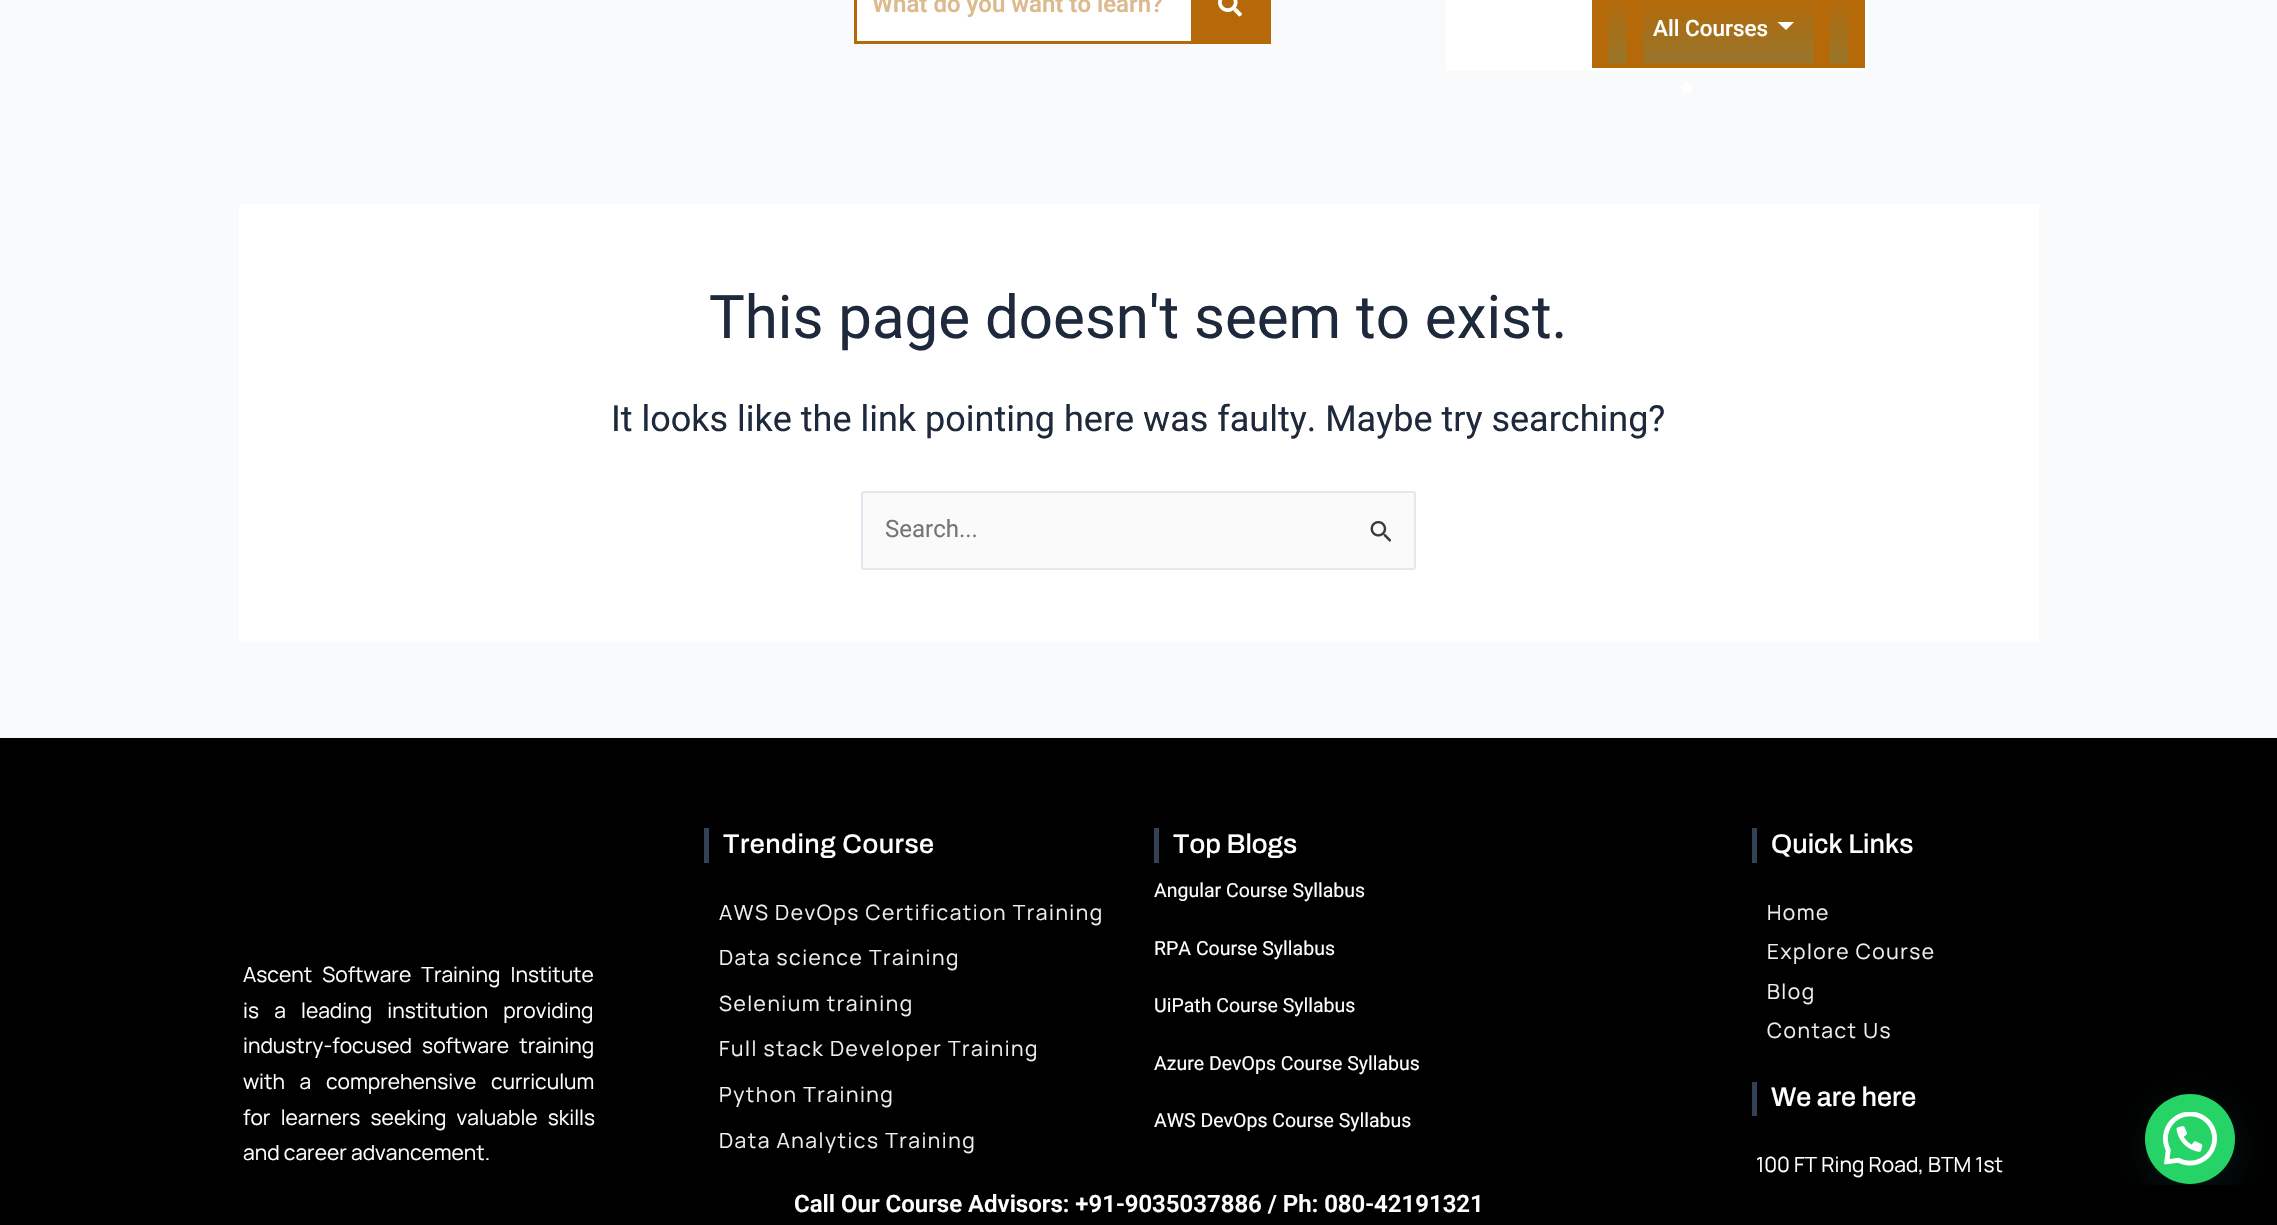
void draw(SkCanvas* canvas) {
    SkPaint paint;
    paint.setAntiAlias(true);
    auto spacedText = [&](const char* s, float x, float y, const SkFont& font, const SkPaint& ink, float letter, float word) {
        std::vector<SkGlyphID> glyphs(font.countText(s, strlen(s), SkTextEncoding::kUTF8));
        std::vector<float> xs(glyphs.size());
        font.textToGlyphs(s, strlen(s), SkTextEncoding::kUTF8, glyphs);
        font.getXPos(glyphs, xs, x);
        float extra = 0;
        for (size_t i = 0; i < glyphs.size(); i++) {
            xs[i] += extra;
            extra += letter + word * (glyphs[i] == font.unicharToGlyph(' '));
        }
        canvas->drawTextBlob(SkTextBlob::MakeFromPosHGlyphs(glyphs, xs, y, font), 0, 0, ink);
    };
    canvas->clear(0xFFF9FAFB);
    paint.setStyle(SkPaint::kStroke_Style);
    paint.setStrokeWidth(3);
    paint.setColor(0xFFB56908);
    canvas->drawRect(SkRect::MakeXYWH(855.5f, -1.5f, 414, 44), paint);
    paint.setStyle(SkPaint::kFill_Style);
    paint.setColor(0xFFFFFFFF);
    canvas->drawRect(SkRect::MakeXYWH(857, 0, 334, 41), paint);
    SkFont font1(fontMgr->matchFamilyStyle("Roboto", SkFontStyle(600, SkFontStyle::kNormal_Width, SkFontStyle::kUpright_Slant)), 24);
    font1.setSubpixel(true);
    paint.setColor(0xFFDDBA8D);
    canvas->drawString("What do you want to learn?", 872, 12, font1, paint);
    paint.setColor(0xFFB56908);
    canvas->drawRect(SkRect::MakeXYWH(1191, 0, 77, 41), paint);
    canvas->drawImageRect(SkImages::DeferredFromEncodedData(SkData::MakeFromFileName("img1.png")), SkRect::MakeXYWH(1218, 0, 24, 17), SkSamplingOptions());
    paint.setColor(0xFFFFFFFF);
    canvas->drawRect(SkRect::MakeXYWH(1446, 0, 422, 71), paint);
    {
        const SkColor colors[] = {0xFFB56908, 0xFF97762C};
        const float stops[] = {0, 1};
        const SkPoint ends[] = {{1728, -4.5f}, {1728, 63}};
        paint.setShader(SkGradientShader::MakeLinear(ends, colors, stops, 2, SkTileMode::kClamp));
        paint.setAlpha(255);
    }
    canvas->drawRect(SkRect::MakeXYWH(1608, 0, 240, 63), paint);
    {
        const SkColor colors[] = {0xFFB56908, 0xFF97762C};
        const float stops[] = {0, 1};
        const SkPoint ends[] = {{1728, 63}, {1728, 131}};
        paint.setShader(SkGradientShader::MakeLinear(ends, colors, stops, 2, SkTileMode::kClamp));
        paint.setAlpha(255);
    }
    canvas->drawRect(SkRect::MakeXYWH(1608, 63, 240, 3), paint);
    paint.setShader(nullptr);
    paint.setColor(0xFFB56908);
    canvas->drawRect(SkRect::MakeXYWH(1814, 0, 16, 63), paint);
    canvas->drawRect(SkRect::MakeXYWH(1848, 0, 17, 66), paint);
    canvas->drawRect(SkRect::MakeXYWH(1608, 66, 257, 2), paint);
    canvas->drawRect(SkRect::MakeXYWH(1592, 0, 16, 68), paint);
    canvas->drawRect(SkRect::MakeXYWH(1626, 0, 17, 63), paint);
    SkFont font2(fontMgr->matchFamilyStyle("Roboto", SkFontStyle(500, SkFontStyle::kNormal_Width, SkFontStyle::kUpright_Slant)), 22.5f);
    font2.setSubpixel(true);
    paint.setColor(0xFFFFFFFF);
    canvas->drawString("All Courses", 1653, 36, font2, paint);
    canvas->drawPath(SkPathBuilder().moveTo(1777.5f, 22).lineTo(1794, 22).lineTo(1786, 30).close().detach(), paint);
    canvas->drawImageRect(SkImages::DeferredFromEncodedData(SkData::MakeFromFileName("img2.png")), SkRect::MakeXYWH(1681, 81, 13, 13), SkSamplingOptions());
    canvas->drawRect(SkRect::MakeXYWH(239, 204, 1800, 438), paint);
    SkFont font3(fontMgr->matchFamilyStyle("Roboto", SkFontStyle::Normal()), 60);
    font3.setSubpixel(true);
    paint.setColor(0xFF1E293B);
    canvas->drawString("This page doesn't seem to exist.", 709, 338, font3, paint);
    SkFont font4(fontMgr->matchFamilyStyle("Roboto", SkFontStyle::Normal()), 36);
    font4.setSubpixel(true);
    canvas->drawString("It looks like the link pointing here was faulty. Maybe try searching?", 611, 431, font4, paint);
    paint.setColor(0xFFFAFAFA);
    canvas->drawRoundRect(SkRect::MakeXYWH(862, 492, 553, 77), 2, 2, paint);
    paint.setStyle(SkPaint::kStroke_Style);
    paint.setStrokeWidth(2);
    paint.setColor(0xFFE2E8F0);
    canvas->drawRoundRect(SkRect::MakeXYWH(862, 492, 553, 77), 2, 2, paint);
    SkFont font5(fontMgr->matchFamilyStyle("Roboto", SkFontStyle::Normal()), 24);
    font5.setSubpixel(true);
    paint.setStyle(SkPaint::kFill_Style);
    paint.setColor(0xFF757575);
    canvas->drawString("Search...", 885, 537, font5, paint);
    canvas->drawImageRect(SkImages::DeferredFromEncodedData(SkData::MakeFromFileName("img3.png")), SkRect::MakeXYWH(1370, 521, 21, 21), SkSamplingOptions());
    paint.setColor(0xFF000000);
    canvas->drawRect(SkRect::MakeXYWH(0, 738, 2277, 447), paint);
    SkFont font6(fontMgr->matchFamilyStyle("Manrope", SkFontStyle::Normal()), 21);
    font6.setSubpixel(true);
    paint.setColor(0xFFFFFFFF);
    spacedText("Ascent Software Training Institute", 243, 982, font6, paint, 0, 6);
    spacedText("is a leading institution providing", 243, 1018, font6, paint, 0, 11);
    spacedText("industry-focused software training", 243, 1053, font6, paint, 0, 6);
    spacedText("with a comprehensive curriculum", 243, 1089, font6, paint, 0, 10.5f);
    spacedText("for learners seeking valuable skills", 243, 1125, font6, paint, 0, 6);
    canvas->drawString("and career advancement.", 243, 1160, font6, paint);
    paint.setColor(0xFF334155);
    canvas->drawRect(SkRect::MakeXYWH(704, 828, 5, 35), paint);
    SkFont font7(fontMgr->matchFamilyStyle("Archivo", SkFontStyle(500, SkFontStyle::kNormal_Width, SkFontStyle::kUpright_Slant)), 27);
    font7.setSubpixel(true);
    paint.setColor(0xFFFFFFFF);
    spacedText("Trending Course", 723, 853, font7, paint, 0.5f, 0);
    paint.setColor(0xFFEEEEEE);
    spacedText("AWS DevOps Certification Training", 719, 920, font6, paint, 1.5f, 0);
    spacedText("Data science Training", 719, 965, font6, paint, 1.5f, 0);
    spacedText("Selenium training", 719, 1011, font6, paint, 1.5f, 0);
    spacedText("Full stack Developer Training", 719, 1056, font6, paint, 1.5f, 0);
    spacedText("Python Training", 719, 1102, font6, paint, 1.5f, 0);
    spacedText("Data Analytics Training", 719, 1148, font6, paint, 1.5f, 0);
    paint.setColor(0xFF334155);
    canvas->drawRect(SkRect::MakeXYWH(1154, 828, 5, 35), paint);
    paint.setColor(0xFFFFFFFF);
    canvas->drawString("Top Blogs", 1173, 853, font7, paint);
    SkFont font8(fontMgr->matchFamilyStyle("Roboto", SkFontStyle::Normal()), 19.5f);
    font8.setSubpixel(true);
    canvas->drawString("Angular Course Syllabus", 1154, 897, font8, paint);
    canvas->drawString("RPA Course Syllabus", 1154, 955, font8, paint);
    canvas->drawString("UiPath Course Syllabus", 1154, 1012, font8, paint);
    canvas->drawString("Azure DevOps Course Syllabus", 1154, 1070, font8, paint);
    canvas->drawString("AWS DevOps Course Syllabus", 1154, 1127, font8, paint);
    paint.setColor(0xFF334155);
    canvas->drawRect(SkRect::MakeXYWH(1752, 828, 5, 35), paint);
    paint.setColor(0xFFFFFFFF);
    canvas->drawString("Quick Links", 1771, 853, font7, paint);
    paint.setColor(0xFFEEEEEE);
    spacedText("Home", 1767, 920, font6, paint, 1.5f, 0);
    spacedText("Explore Course", 1767, 959, font6, paint, 1.5f, 0);
    spacedText("Blog", 1767, 999, font6, paint, 1.5f, 0);
    spacedText("Contact Us", 1767, 1038, font6, paint, 1.5f, 0);
    paint.setColor(0xFF334155);
    canvas->drawRect(SkRect::MakeXYWH(1752, 1082, 5, 34), paint);
    paint.setColor(0xFFFFFFFF);
    canvas->drawString("We are here", 1771, 1106, font7, paint);
    canvas->drawString("100 FT Ring Road, BTM 1st", 1756, 1172, font6, paint);
    paint.setColor(0x3D075E54);
    paint.setMaskFilter(SkMaskFilter::MakeBlur(kNormal_SkBlurStyle, 18));
    canvas->drawRoundRect(SkRect::MakeXYWH(2147, 1103, 90, 90), 45, 45, paint);
    paint.setMaskFilter(nullptr);
    paint.setColor(0xFF000000);
    canvas->drawRect(SkRect::MakeXYWH(0, 1185, 2277, 40), paint);
    paint.setColor(0xFFFFFFFF);
    canvas->drawString("Call Our Course Advisors: +91-9035037886 / Ph: 080-42191321", 794, 1212, font1, paint);
    paint.setColor(0xFF25D366);
    canvas->drawCircle(2190, 1139, 45, paint);
    canvas->drawImageRect(SkImages::DeferredFromEncodedData(SkData::MakeFromFileName("img4.png")), SkRect::MakeXYWH(2163, 1112, 54, 54), SkSamplingOptions());
}
